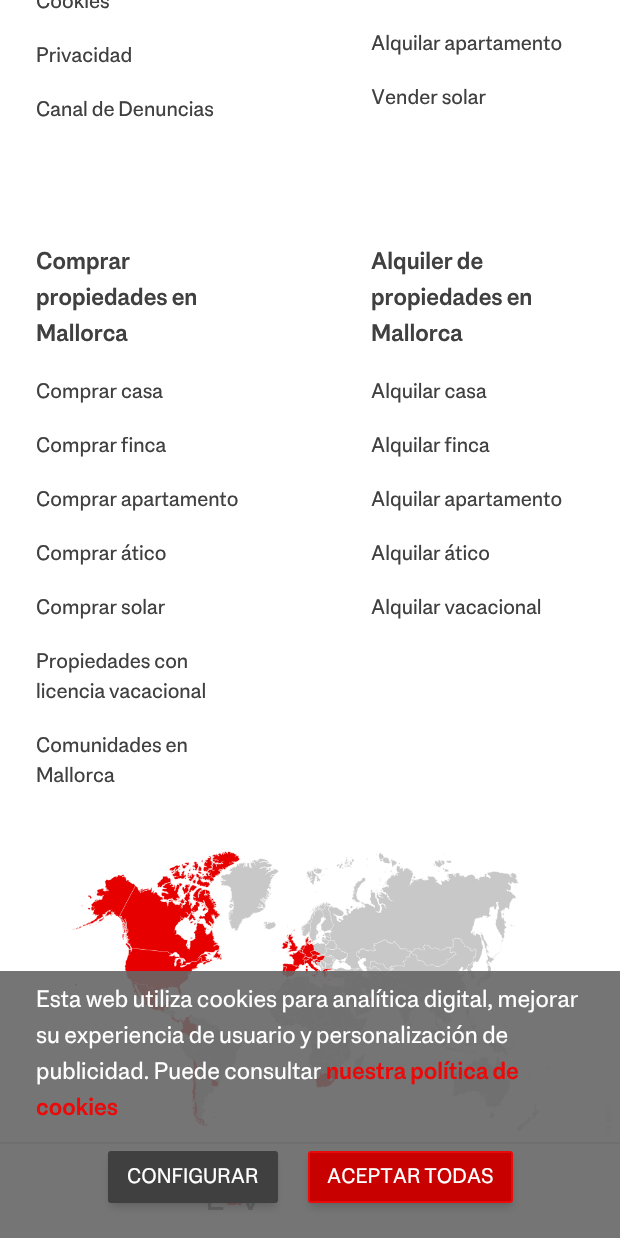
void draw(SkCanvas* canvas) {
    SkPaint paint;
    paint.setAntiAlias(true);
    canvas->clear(0xFFFFFFFF);
    SkFont font1(fontMgr->matchFamilyStyle("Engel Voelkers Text", SkFontStyle::Normal()), 21);
    font1.setSubpixel(true);
    paint.setColor(0xFF404040);
    canvas->drawString("Cookies", 36, 8, font1, paint);
    canvas->drawString("Privacidad", 36, 62, font1, paint);
    canvas->drawString("Canal de Denuncias", 36, 116, font1, paint);
    canvas->drawString("Alquilar apartamento", 371, 50, font1, paint);
    canvas->drawString("Vender solar", 371, 104, font1, paint);
    SkFont font2(fontMgr->matchFamilyStyle("Engel Voelkers Text", SkFontStyle::Bold()), 24);
    font2.setSubpixel(true);
    canvas->drawString("Comprar", 36, 269, font2, paint);
    canvas->drawString("propiedades en", 36, 305, font2, paint);
    canvas->drawString("Mallorca", 36, 341, font2, paint);
    canvas->drawString("Comprar casa", 36, 398, font1, paint);
    canvas->drawString("Comprar finca", 36, 452, font1, paint);
    canvas->drawString("Comprar apartamento", 36, 506, font1, paint);
    canvas->drawString("Comprar ático", 36, 560, font1, paint);
    canvas->drawString("Comprar solar", 36, 614, font1, paint);
    canvas->drawString("Propiedades con", 36, 668, font1, paint);
    canvas->drawString("licencia vacacional", 36, 698, font1, paint);
    canvas->drawString("Comunidades en", 36, 752, font1, paint);
    canvas->drawString("Mallorca", 36, 782, font1, paint);
    canvas->drawString("Alquiler de", 371, 269, font2, paint);
    canvas->drawString("propiedades en", 371, 305, font2, paint);
    canvas->drawString("Mallorca", 371, 341, font2, paint);
    canvas->drawString("Alquilar casa", 371, 398, font1, paint);
    canvas->drawString("Alquilar finca", 371, 452, font1, paint);
    canvas->drawString("Alquilar apartamento", 371, 506, font1, paint);
    canvas->drawString("Alquilar ático", 371, 560, font1, paint);
    canvas->drawString("Alquilar vacacional", 371, 614, font1, paint);
    canvas->drawImageRect(SkImages::DeferredFromEncodedData(SkData::MakeFromFileName("img1.png")), SkRect::MakeXYWH(70, 851, 541, 281), SkSamplingOptions());
    paint.setColor(0xFFBCBDBC);
    canvas->drawRect(SkRect::MakeXYWH(0, 1142, 620, 2), paint);
    canvas->drawImageRect(SkImages::DeferredFromEncodedData(SkData::MakeFromFileName("img2.png")), SkRect::MakeXYWH(207, 1203, 48, 8), SkSamplingOptions());
    paint.setColor(0xE6666666);
    canvas->drawRect(SkRect::MakeXYWH(0, 971, 620, 267), paint);
    SkFont font3(fontMgr->matchFamilyStyle("Engel Voelkers Text", SkFontStyle::Normal()), 24);
    font3.setSubpixel(true);
    paint.setColor(0xFFFFFFFF);
    canvas->drawString("Esta web utiliza cookies para analítica digital, mejorar", 36, 1007, font3, paint);
    canvas->drawString("su experiencia de usuario y personalización de", 36, 1043, font3, paint);
    canvas->drawString("publicidad. Puede consultar", 36, 1079, font3, paint);
    paint.setColor(0xFFEB0A0A);
    canvas->drawString("nuestra política de", 326, 1079, font2, paint);
    canvas->drawString("cookies", 36, 1115, font2, paint);
    paint.setColor(0x1A000000);
    paint.setMaskFilter(SkMaskFilter::MakeBlur(kNormal_SkBlurStyle, 3));
    canvas->drawRect(SkRect::MakeXYWH(111, 1157, 164, 46), paint);
    paint.setMaskFilter(nullptr);
    paint.setMaskFilter(SkMaskFilter::MakeBlur(kNormal_SkBlurStyle, 4.5f));
    canvas->drawRoundRect(SkRect::MakeXYWH(110, 1158, 166, 50), 1.5f, 1.5f, paint);
    paint.setMaskFilter(nullptr);
    paint.setColor(0xFF404040);
    canvas->drawRoundRect(SkRect::MakeXYWH(109, 1152, 168, 50), 2, 2, paint);
    paint.setStyle(SkPaint::kStroke_Style);
    paint.setStrokeWidth(2);
    canvas->drawRoundRect(SkRect::MakeXYWH(109, 1152, 168, 50), 2, 2, paint);
    paint.setStyle(SkPaint::kFill_Style);
    paint.setColor(0xFFFFFFFF);
    canvas->drawString("CONFIGURAR", 127, 1183, font1, paint);
    paint.setColor(0x1A000000);
    paint.setMaskFilter(SkMaskFilter::MakeBlur(kNormal_SkBlurStyle, 3));
    canvas->drawRect(SkRect::MakeXYWH(311, 1157, 199, 46), paint);
    paint.setMaskFilter(nullptr);
    paint.setMaskFilter(SkMaskFilter::MakeBlur(kNormal_SkBlurStyle, 4.5f));
    canvas->drawRoundRect(SkRect::MakeXYWH(309, 1158, 203, 50), 1.5f, 1.5f, paint);
    paint.setMaskFilter(nullptr);
    paint.setColor(0xFFC80000);
    canvas->drawRoundRect(SkRect::MakeXYWH(309, 1152, 203, 50), 2, 2, paint);
    paint.setStyle(SkPaint::kStroke_Style);
    paint.setColor(0xFFEB0A0A);
    canvas->drawRoundRect(SkRect::MakeXYWH(309, 1152, 203, 50), 2, 2, paint);
    paint.setStyle(SkPaint::kFill_Style);
    paint.setColor(0xFFFFFFFF);
    canvas->drawString("ACEPTAR TODAS", 327, 1183, font1, paint);
}
